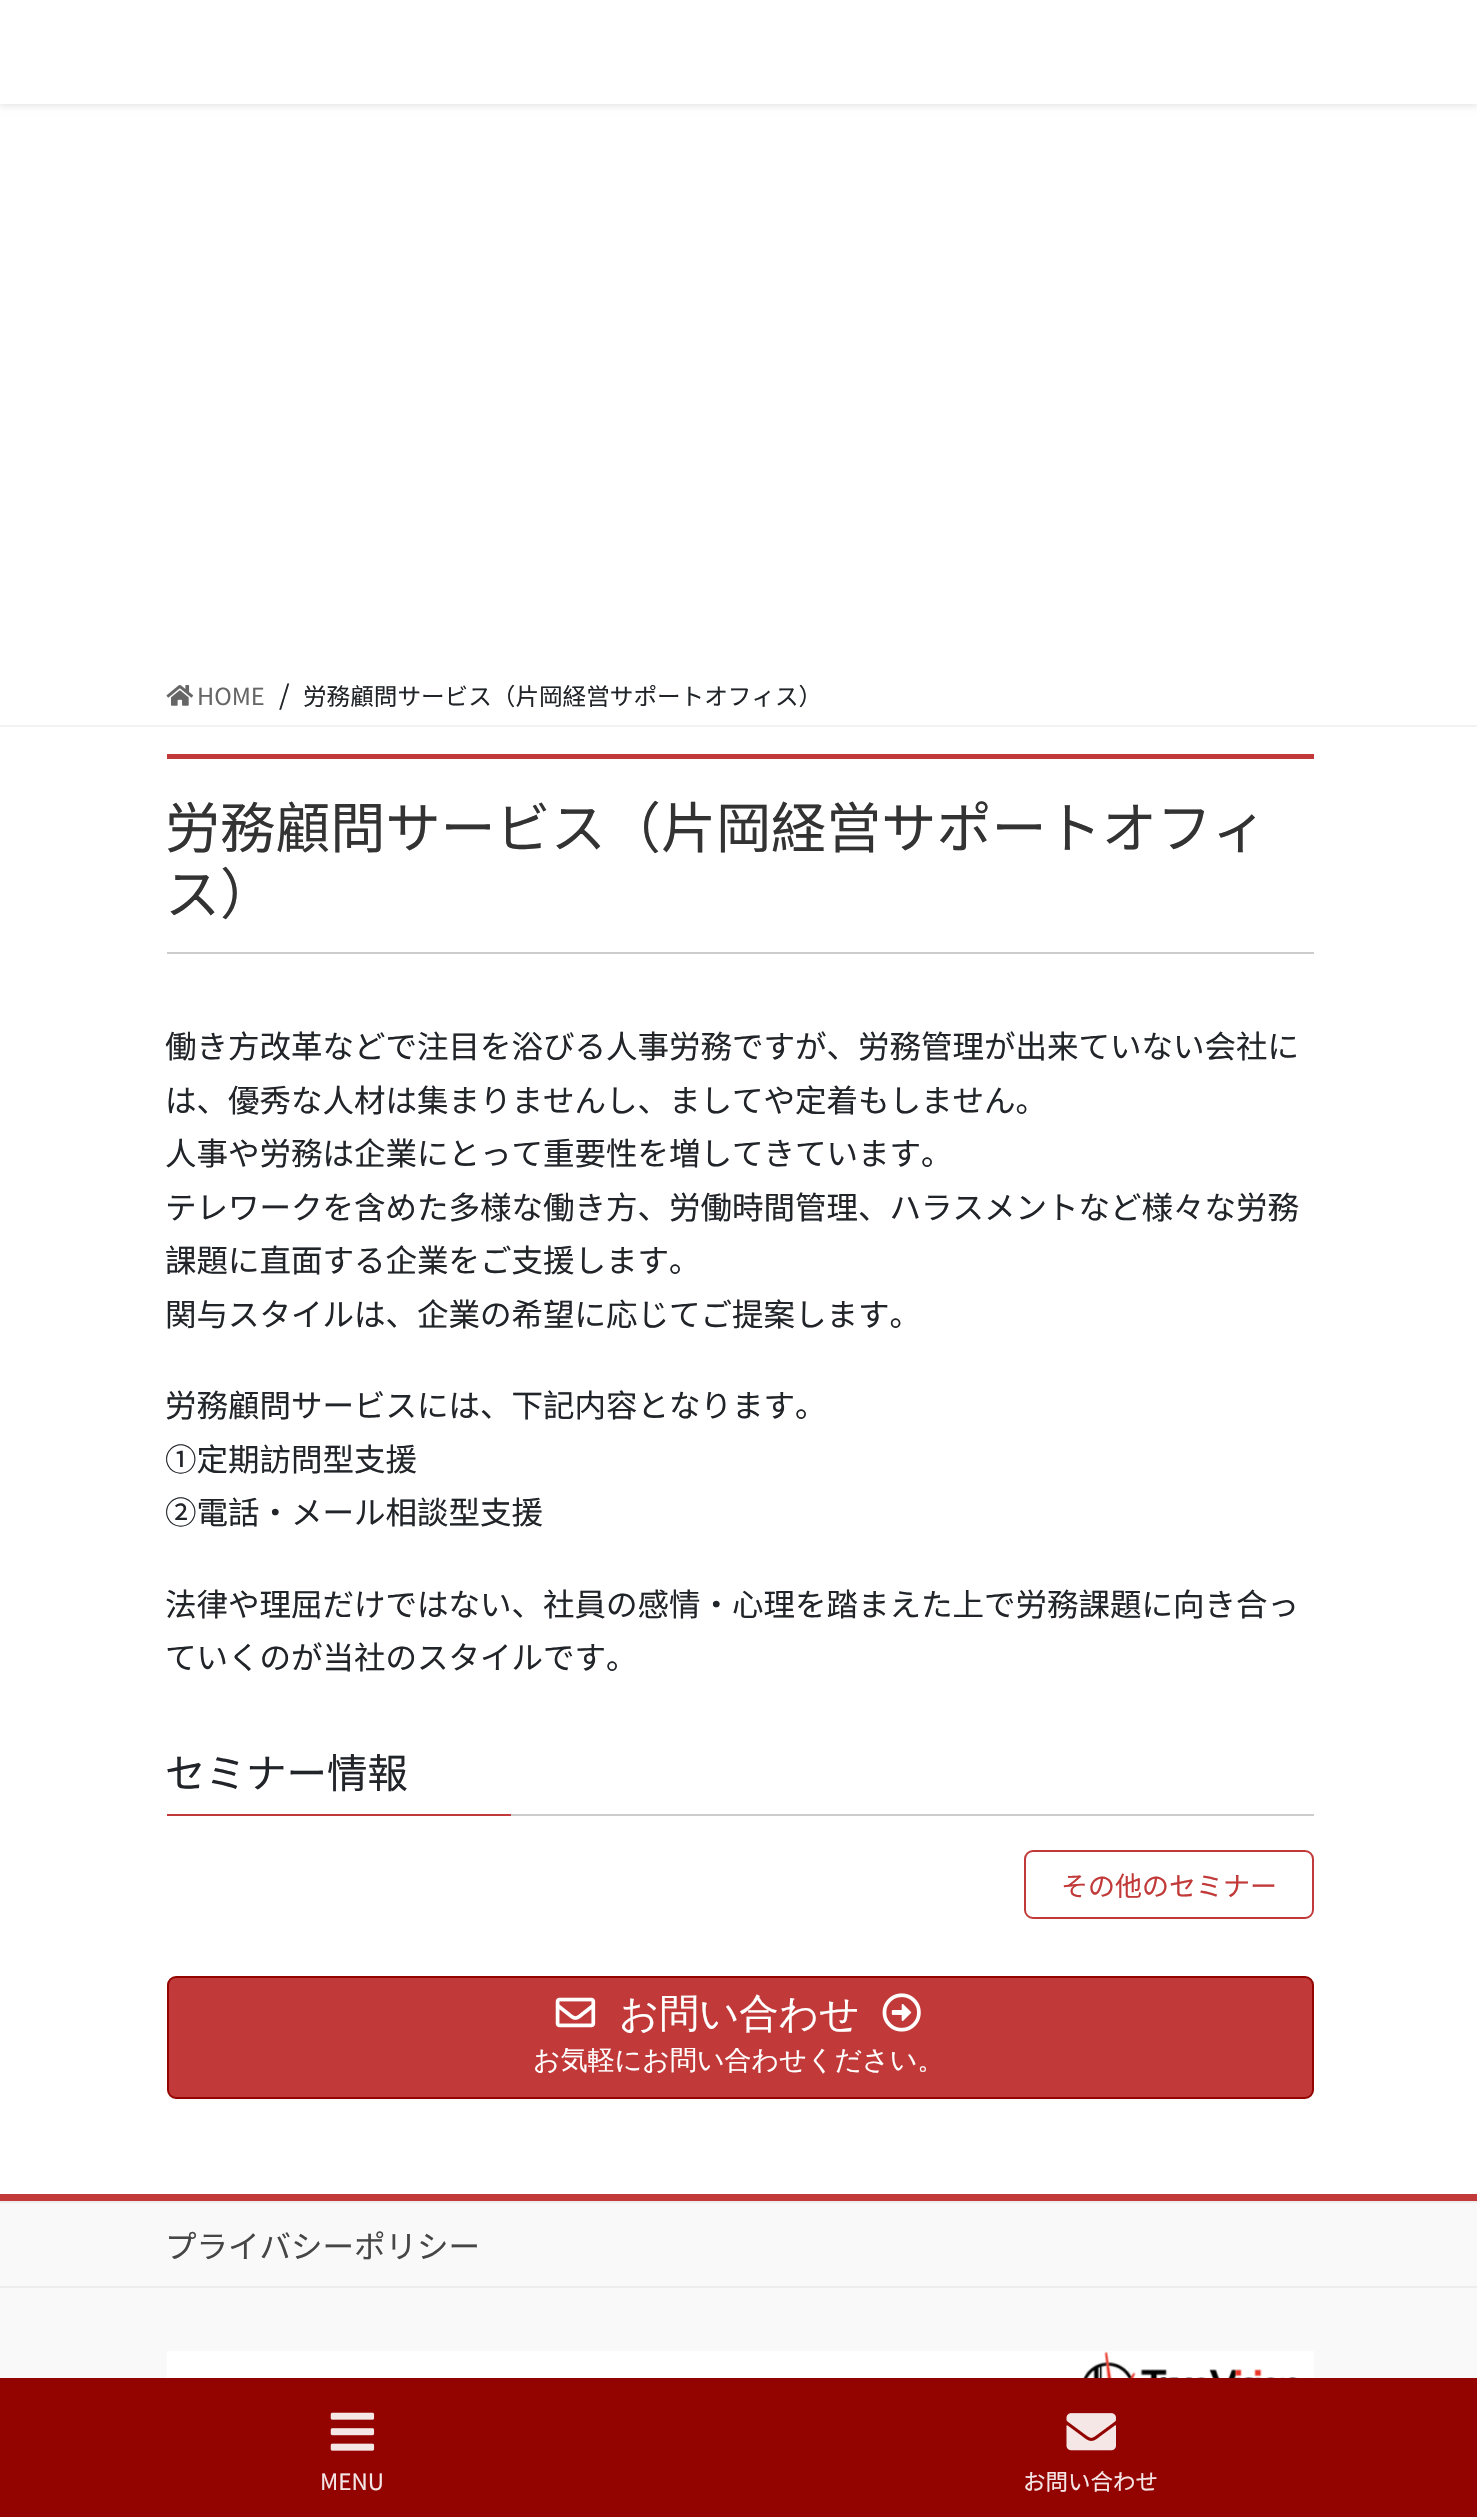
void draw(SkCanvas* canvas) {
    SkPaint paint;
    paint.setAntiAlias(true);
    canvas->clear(0xFFFFFFFF);
    paint.setColor(0x1A000000);
    paint.setMaskFilter(SkMaskFilter::MakeBlur(kNormal_SkBlurStyle, 3.5f));
    canvas->drawRect(SkRect::MakeXYWH(0, 2, 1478, 104), paint);
    paint.setMaskFilter(nullptr);
    paint.setColor(0xFFFFFFFF);
    canvas->drawRect(SkRect::MakeXYWH(0, 0, 1477, 104), paint);
    paint.setColor(0xFFF2F2F2);
    canvas->drawRect(SkRect::MakeXYWH(0, 725, 1477, 2), paint);
    canvas->drawImageRect(SkImages::DeferredFromEncodedData(SkData::MakeFromFileName("img1.png")), SkRect::MakeXYWH(166, 685, 28, 21), SkSamplingOptions());
    SkFont font1(fontMgr->matchFamilyStyle("Noto Sans SC", SkFontStyle(100, SkFontStyle::kNormal_Width, SkFontStyle::kUpright_Slant)), 23.6f);
    font1.setSubpixel(true);
    paint.setColor(0xFF666666);
    canvas->drawString("HOME", 197, 705, font1, paint);
    SkFont font2(fontMgr->matchFamilyStyle("Noto Sans SC", SkFontStyle(100, SkFontStyle::kNormal_Width, SkFontStyle::kUpright_Slant)), 27);
    font2.setSubpixel(true);
    paint.setColor(0xFF212529);
    canvas->drawString("/", 279, 705, font2, paint);
    canvas->drawString("労務顧問サービス（片岡経営サポートオフィス）", 303, 705, font1, paint);
    paint.setColor(0xFFC13A39);
    canvas->drawRect(SkRect::MakeXYWH(167, 754, 1147, 5), paint);
    paint.setColor(0xFFCCCCCC);
    canvas->drawRect(SkRect::MakeXYWH(167, 952, 1147, 2), paint);
    SkFont font3(fontMgr->matchFamilyStyle("Noto Sans SC", SkFontStyle(100, SkFontStyle::kNormal_Width, SkFontStyle::kUpright_Slant)), 55.1f);
    font3.setSubpixel(true);
    paint.setColor(0xFF333333);
    canvas->drawString("労務顧問サービス（片岡経営サポートオフィ", 165, 848, font3, paint);
    canvas->drawString("ス）", 165, 914, font3, paint);
    SkFont font4(fontMgr->matchFamilyStyle("Noto Sans SC", SkFontStyle(100, SkFontStyle::kNormal_Width, SkFontStyle::kUpright_Slant)), 31.5f);
    font4.setSubpixel(true);
    paint.setColor(0xFF212529);
    canvas->drawString("働き方改革などで注目を浴びる人事労務ですが、労務管理が出来ていない会社に", 165, 1058, font4, paint);
    canvas->drawString("は、優秀な人材は集まりませんし、ましてや定着もしません。", 165, 1112, font4, paint);
    canvas->drawString("人事や労務は企業にとって重要性を増してきています。", 165, 1165, font4, paint);
    canvas->drawString("テレワークを含めた多様な働き方、労働時間管理、ハラスメントなど様々な労務", 165, 1219, font4, paint);
    canvas->drawString("課題に直面する企業をご支援します。", 165, 1272, font4, paint);
    canvas->drawString("関与スタイルは、企業の希望に応じてご提案します。", 165, 1326, font4, paint);
    canvas->drawString("労務顧問サービスには、下記内容となります。", 165, 1417, font4, paint);
    canvas->drawString("①定期訪問型支援", 165, 1471, font4, paint);
    canvas->drawString("②電話・メール相談型支援", 165, 1524, font4, paint);
    canvas->drawString("法律や理屈だけではない、社員の感情・心理を踏まえた上で労務課題に向き合っ", 165, 1616, font4, paint);
    canvas->drawString("ていくのが当社のスタイルです。", 165, 1669, font4, paint);
    paint.setColor(0xFFCCCCCC);
    canvas->drawRect(SkRect::MakeXYWH(511, 1814, 803, 2), paint);
    SkFont font5(fontMgr->matchFamilyStyle("Noto Sans SC", SkFontStyle(100, SkFontStyle::kNormal_Width, SkFontStyle::kUpright_Slant)), 40.5f);
    font5.setSubpixel(true);
    paint.setColor(0xFF212529);
    canvas->drawString("セミナー情報", 165, 1788, font5, paint);
    paint.setColor(0xFFC13A39);
    canvas->drawRect(SkRect::MakeXYWH(167, 1814, 344, 2), paint);
    paint.setStyle(SkPaint::kStroke_Style);
    paint.setStrokeWidth(2);
    canvas->drawRoundRect(SkRect::MakeXYWH(1025, 1851, 288, 67), 8, 8, paint);
    paint.setStyle(SkPaint::kFill_Style);
    canvas->drawString("その他のセミナー", 1061, 1896, font2, paint);
    canvas->drawRoundRect(SkRect::MakeXYWH(168, 1977, 1145, 121), 8, 8, paint);
    paint.setStyle(SkPaint::kStroke_Style);
    paint.setColor(0xFF930400);
    canvas->drawRoundRect(SkRect::MakeXYWH(168, 1977, 1145, 121), 8, 8, paint);
    canvas->drawImageRect(SkImages::DeferredFromEncodedData(SkData::MakeFromFileName("img2.png")), SkRect::MakeXYWH(555, 1997, 41, 31), SkSamplingOptions());
    SkFont font6(fontMgr->matchFamilyStyle("WenQuanYi Zen Hei", SkFontStyle(500, SkFontStyle::kNormal_Width, SkFontStyle::kUpright_Slant)), 39.5f);
    font6.setSubpixel(true);
    paint.setStyle(SkPaint::kFill_Style);
    paint.setColor(0xFFFFFFFF);
    canvas->drawString("お問い合わせ", 619, 2027, font6, paint);
    canvas->drawImageRect(SkImages::DeferredFromEncodedData(SkData::MakeFromFileName("img3.png")), SkRect::MakeXYWH(882, 1993, 39, 39), SkSamplingOptions());
    canvas->save();
    canvas->clipRect(SkRect::MakeXYWH(191, 2048, 1098, 31));
    SkFont font7(fontMgr->matchFamilyStyle("WenQuanYi Zen Hei", SkFontStyle(500, SkFontStyle::kNormal_Width, SkFontStyle::kUpright_Slant)), 27);
    font7.setSubpixel(true);
    canvas->drawString("お気軽にお問い合わせください。", 533, 2069, font7, paint);
    canvas->restore();
    paint.setColor(0xFFF9F9F9);
    canvas->drawRect(SkRect::MakeXYWH(0, 2203, 1477, 175), paint);
    paint.setColor(0xFFC13A39);
    canvas->drawRect(SkRect::MakeXYWH(0, 2194, 1477, 7), paint);
    paint.setColor(0xFFEDEDED);
    canvas->drawRect(SkRect::MakeXYWH(0, 2201, 1477, 2), paint);
    canvas->drawRect(SkRect::MakeXYWH(0, 2286, 1477, 2), paint);
    paint.setColor(0xFF464646);
    canvas->drawString("プライバシーポリシー", 165, 2258, font4, paint);
    canvas->drawImageRect(SkImages::DeferredFromEncodedData(SkData::MakeFromFileName("img4.png")), SkRect::MakeXYWH(167, 2351, 1147, 27), SkSamplingOptions());
    paint.setColor(0xFF930400);
    canvas->drawRect(SkRect::MakeXYWH(0, 2378, 1477, 139), paint);
    canvas->drawImageRect(SkImages::DeferredFromEncodedData(SkData::MakeFromFileName("img5.png")), SkRect::MakeXYWH(330, 2412, 45, 39), SkSamplingOptions());
    SkFont font8(fontMgr->matchFamilyStyle("Noto Sans SC", SkFontStyle(100, SkFontStyle::kNormal_Width, SkFontStyle::kUpright_Slant)), 22.5f);
    font8.setSubpixel(true);
    paint.setColor(0xFFF4E6E6);
    canvas->drawString("MENU", 320, 2490, font8, paint);
    canvas->drawImageRect(SkImages::DeferredFromEncodedData(SkData::MakeFromFileName("img6.png")), SkRect::MakeXYWH(1066, 2413, 50, 38), SkSamplingOptions());
    canvas->drawString("お問い合わせ", 1023, 2490, font8, paint);
}
